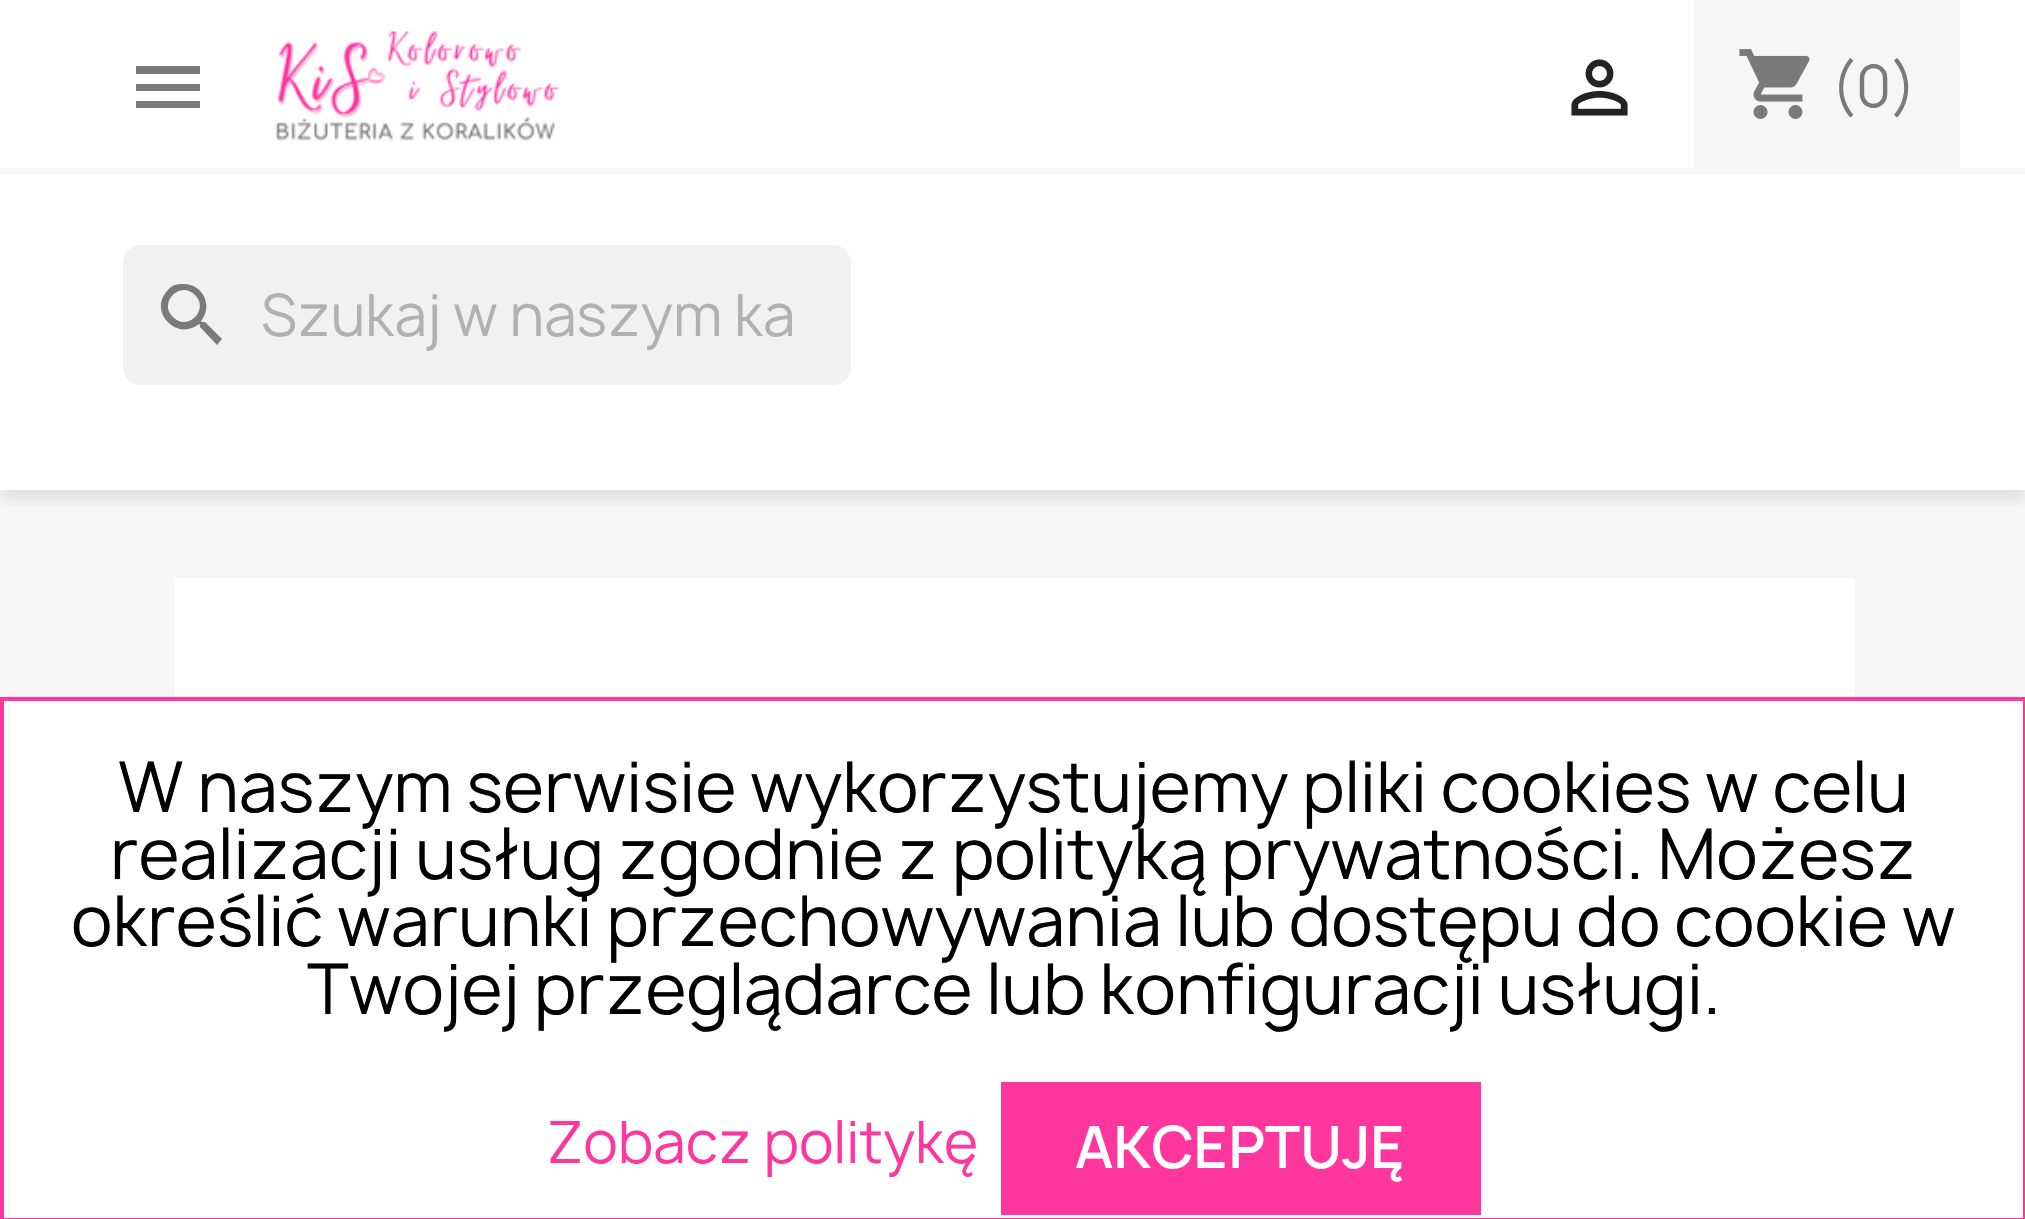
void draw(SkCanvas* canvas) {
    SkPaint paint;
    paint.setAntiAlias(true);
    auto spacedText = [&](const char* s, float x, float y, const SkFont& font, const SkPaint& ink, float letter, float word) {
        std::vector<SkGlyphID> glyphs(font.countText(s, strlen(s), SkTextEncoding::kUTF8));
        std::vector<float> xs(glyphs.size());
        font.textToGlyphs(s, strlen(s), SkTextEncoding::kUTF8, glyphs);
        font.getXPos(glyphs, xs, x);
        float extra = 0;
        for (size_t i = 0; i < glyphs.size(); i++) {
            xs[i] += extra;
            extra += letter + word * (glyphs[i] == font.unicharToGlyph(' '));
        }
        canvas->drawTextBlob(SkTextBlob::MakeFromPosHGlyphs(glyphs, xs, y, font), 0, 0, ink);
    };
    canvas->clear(0xFFFFFFFF);
    paint.setColor(0xFFF6F6F6);
    canvas->drawRect(SkRect::MakeXYWH(0, 490, 2025, 207), paint);
    canvas->save();
    canvas->clipRect(SkRect::MakeXYWH(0, 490, 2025, 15));
    paint.setColor(0x1C000000);
    paint.setMaskFilter(SkMaskFilter::MakeBlur(kNormal_SkBlurStyle, 9));
    canvas->drawRect(SkRect::MakeXYWH(0, 7, 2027, 490), paint);
    paint.setMaskFilter(nullptr);
    canvas->restore();
    paint.setColor(0xFFF6F6F6);
    canvas->drawRect(SkRect::MakeXYWH(0, 168, 2025, 7), paint);
    paint.setColor(0xFF7A7A7A);
    canvas->drawPath(SkPathBuilder().moveTo(136, 66).lineTo(200, 66).lineTo(200, 74).lineTo(136, 74).close().moveTo(136, 91).lineTo(136, 84).lineTo(200, 84).lineTo(200, 91).close().moveTo(136, 108).lineTo(136, 101).lineTo(200, 101).lineTo(200, 108).close().detach(), paint);
    canvas->drawImageRect(SkImages::DeferredFromEncodedData(SkData::MakeFromFileName("img1.png")), SkRect::MakeXYWH(275, 31, 286, 110), SkSamplingOptions());
    canvas->drawImageRect(SkImages::DeferredFromEncodedData(SkData::MakeFromFileName("img2.png")), SkRect::MakeXYWH(1571, 59, 57, 57), SkSamplingOptions());
    paint.setColor(0xFFF6F6F6);
    canvas->drawRect(SkRect::MakeXYWH(1694, 0, 266, 168), paint);
    canvas->drawImageRect(SkImages::DeferredFromEncodedData(SkData::MakeFromFileName("img3.png")), SkRect::MakeXYWH(1739, 49, 71, 70), SkSamplingOptions());
    SkFont font1(fontMgr->matchFamilyStyle("Manrope", SkFontStyle::Normal()), 56);
    font1.setSubpixel(true);
    paint.setColor(0xFF7A7A7A);
    canvas->drawString("(0)", 1831, 107, font1, paint);
    paint.setColor(0xFFF1F1F1);
    canvas->drawRoundRect(SkRect::MakeXYWH(123, 245, 728, 140), 18, 18, paint);
    paint.setColor(0xFF7A7A7A);
    canvas->drawPath(SkPathBuilder().moveTo(173, 317).cubicTo(187, 332, 210, 310, 195, 295).cubicTo(180, 280, 158, 303, 173, 317).close().moveTo(205, 322).lineTo(222, 339).lineTo(217, 345).lineTo(200, 327).lineTo(200, 325).lineTo(199, 324).cubicTo(177, 342, 147, 311, 168, 290).cubicTo(171, 286, 176, 284, 181, 284).cubicTo(202, 282, 214, 305, 201, 321).lineTo(202, 322).close().detach(), paint);
    paint.setColor(0xFFB1B1B1);
    canvas->drawString("Szukaj w naszym ka", 261, 336, font1, paint);
    paint.setColor(0xFFFFFFFF);
    canvas->drawRect(SkRect::MakeXYWH(175, 578, 1680, 119), paint);
    paint.setStyle(SkPaint::kStroke_Style);
    paint.setStrokeWidth(4);
    paint.setColor(0xFFFF369E);
    canvas->drawRect(SkRect::MakeXYWH(2, 699, 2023, 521), paint);
    SkFont font2(fontMgr->matchFamilyStyle("Manrope", SkFontStyle::Normal()), 67.2f);
    font2.setSubpixel(true);
    paint.setStyle(SkPaint::kFill_Style);
    paint.setColor(0xFF000000);
    spacedText("W naszym serwisie wykorzystujemy pliki cookies w celu", 118, 812, font2, paint, 0, -0.25f);
    spacedText("realizacji usług zgodnie z polityką prywatności. Możesz", 110, 879, font2, paint, 0, -0.25f);
    spacedText("określić warunki przechowywania lub dostępu do cookie w", 71, 946, font2, paint, 0, -0.25f);
    canvas->drawString("Twojej przeglądarce lub konfiguracji usługi.", 307, 1014, font2, paint);
    paint.setColor(0xFFFF369E);
    canvas->drawString("Zobacz politykę", 547, 1163, font1, paint);
    canvas->drawRect(SkRect::MakeXYWH(1001, 1082, 480, 133), paint);
    SkFont font3(fontMgr->matchFamilyStyle("Manrope", SkFontStyle(600, SkFontStyle::kNormal_Width, SkFontStyle::kUpright_Slant)), 56);
    font3.setSubpixel(true);
    paint.setColor(0xFFFFFFFF);
    canvas->drawString("AKCEPTUJĘ", 1075, 1168, font3, paint);
}
